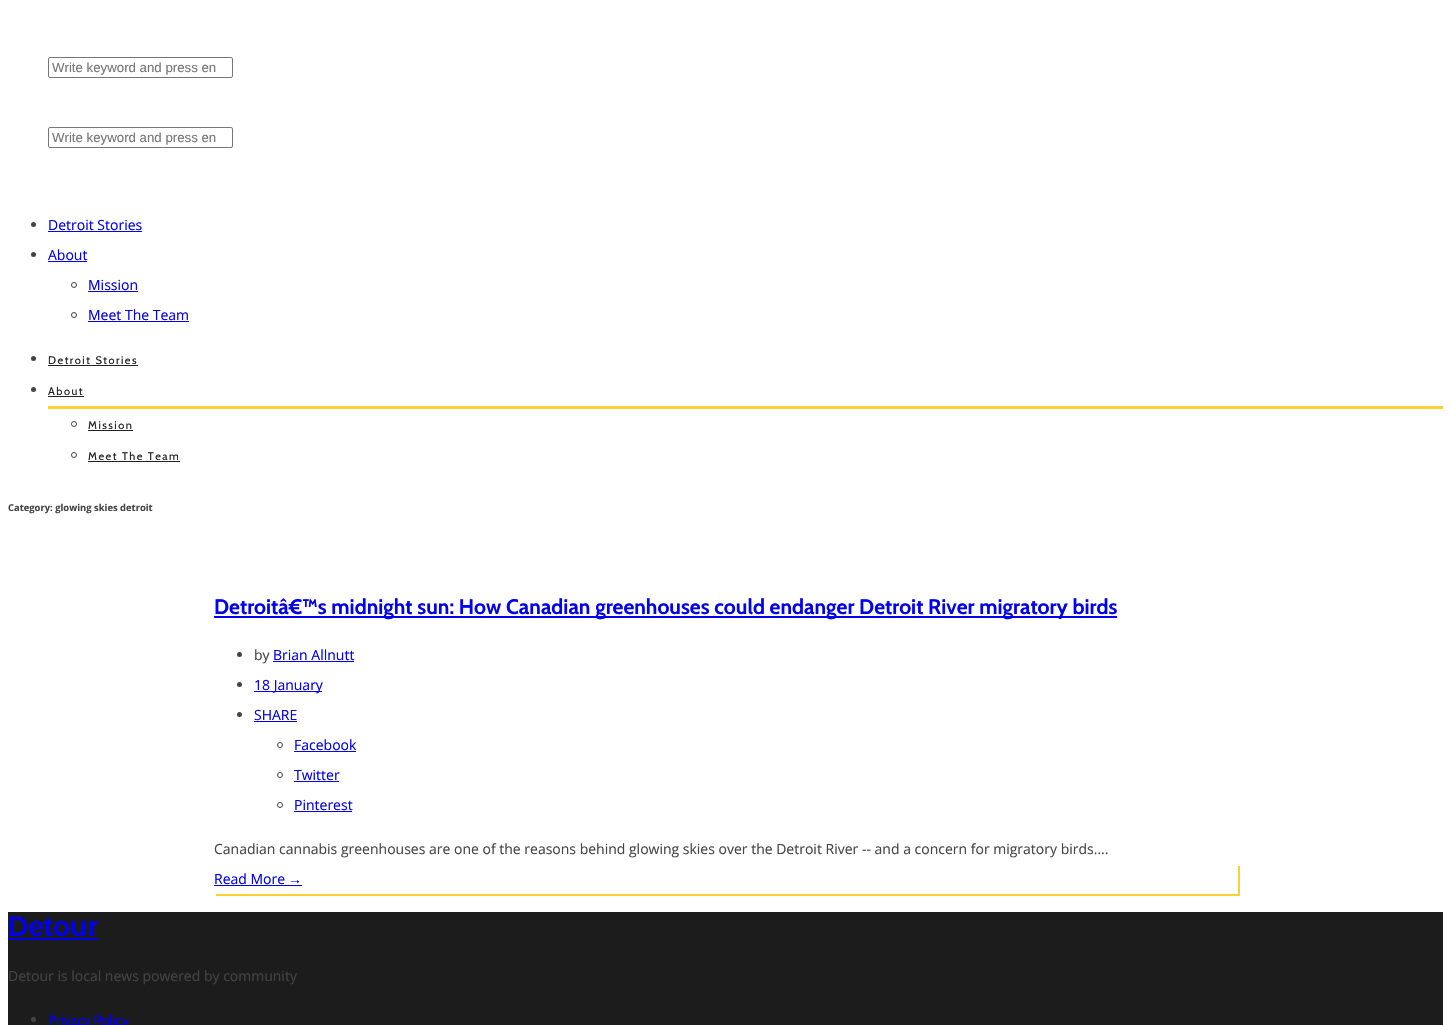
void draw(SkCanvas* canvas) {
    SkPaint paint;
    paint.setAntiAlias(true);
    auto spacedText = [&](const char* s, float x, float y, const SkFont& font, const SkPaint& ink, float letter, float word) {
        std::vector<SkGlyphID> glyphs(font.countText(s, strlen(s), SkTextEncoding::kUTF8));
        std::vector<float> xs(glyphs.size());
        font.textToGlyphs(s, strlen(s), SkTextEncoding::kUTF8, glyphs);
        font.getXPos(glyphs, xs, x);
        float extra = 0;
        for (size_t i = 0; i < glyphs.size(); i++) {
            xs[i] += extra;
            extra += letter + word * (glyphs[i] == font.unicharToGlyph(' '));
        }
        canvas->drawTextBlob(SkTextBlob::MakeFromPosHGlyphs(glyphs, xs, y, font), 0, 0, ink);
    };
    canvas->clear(0xFFFFFFFF);
    paint.setStyle(SkPaint::kStroke_Style);
    paint.setStrokeWidth(1);
    paint.setColor(0xFF767676);
    canvas->drawRoundRect(SkRect::MakeXYWH(48.5f, 57.5f, 184, 20), 1.5f, 1.5f, paint);
    canvas->save();
    canvas->clipRect(SkRect::MakeXYWH(52, 60, 164, 15));
    SkFont font1(fontMgr->matchFamilyStyle("Liberation Sans", SkFontStyle::Normal()), 13.25f);
    font1.setSubpixel(true);
    paint.setStyle(SkPaint::kFill_Style);
    paint.setColor(0xFF757575);
    canvas->drawString("Write keyword and press en", 52, 72, font1, paint);
    canvas->restore();
    paint.setStyle(SkPaint::kStroke_Style);
    paint.setColor(0xFF767676);
    canvas->drawRoundRect(SkRect::MakeXYWH(48.5f, 127.5f, 184, 20), 1.5f, 1.5f, paint);
    canvas->save();
    canvas->clipRect(SkRect::MakeXYWH(52, 130, 164, 15));
    paint.setStyle(SkPaint::kFill_Style);
    paint.setColor(0xFF757575);
    canvas->drawString("Write keyword and press en", 52, 142, font1, paint);
    canvas->restore();
    paint.setColor(0xFF444444);
    canvas->drawCircle(33.5f, 224.5f, 2.5f, paint);
    SkFont font2(fontMgr->matchFamilyStyle("Open Sans", SkFontStyle::Normal()), 14);
    font2.setSubpixel(true);
    paint.setColor(0xFF0000EE);
    canvas->drawString("Detroit Stories", 48, 230, font2, paint);
    canvas->drawRect(SkRect::MakeXYWH(48, 231, 94, 1), paint);
    paint.setColor(0xFF444444);
    canvas->drawCircle(33.5f, 254.5f, 2.5f, paint);
    paint.setColor(0xFF0000EE);
    canvas->drawString("About", 48, 260, font2, paint);
    canvas->drawRect(SkRect::MakeXYWH(48, 261, 39, 1), paint);
    paint.setStyle(SkPaint::kStroke_Style);
    paint.setColor(0xFF444444);
    canvas->drawCircle(74, 285, 2.5f, paint);
    paint.setStyle(SkPaint::kFill_Style);
    paint.setColor(0xFF0000EE);
    canvas->drawString("Mission", 88, 290, font2, paint);
    canvas->drawRect(SkRect::MakeXYWH(88, 291, 50, 1), paint);
    paint.setStyle(SkPaint::kStroke_Style);
    paint.setColor(0xFF444444);
    canvas->drawCircle(74, 315, 2.5f, paint);
    paint.setStyle(SkPaint::kFill_Style);
    paint.setColor(0xFF0000EE);
    canvas->drawString("Meet The Team", 88, 320, font2, paint);
    canvas->drawRect(SkRect::MakeXYWH(88, 321, 101, 1), paint);
    paint.setColor(0xFF444444);
    canvas->drawCircle(33.5f, 358.5f, 2.5f, paint);
    SkFont font3(fontMgr->matchFamilyStyle("Cabin", SkFontStyle::Normal()), 11);
    font3.setSubpixel(true);
    paint.setColor(0xFF222222);
    spacedText("Detroit Stories", 48, 364, font3, paint, 1.5f, 0);
    canvas->drawRect(SkRect::MakeXYWH(48, 365, 90, 1), paint);
    paint.setColor(0xFF444444);
    canvas->drawCircle(33.5f, 389.5f, 2.5f, paint);
    paint.setColor(0xFF222222);
    spacedText("About", 48, 395, font3, paint, 1.5f, 0);
    canvas->drawRect(SkRect::MakeXYWH(48, 396, 36, 1), paint);
    paint.setColor(0xFFFFD130);
    canvas->drawRect(SkRect::MakeXYWH(48, 406, 1395, 3), paint);
    paint.setStyle(SkPaint::kStroke_Style);
    paint.setColor(0xFF444444);
    canvas->drawCircle(74, 424, 2.5f, paint);
    paint.setStyle(SkPaint::kFill_Style);
    paint.setColor(0xFF222222);
    spacedText("Mission", 88, 429, font3, paint, 1.5f, 0);
    canvas->drawRect(SkRect::MakeXYWH(88, 430, 45, 1), paint);
    paint.setStyle(SkPaint::kStroke_Style);
    paint.setColor(0xFF444444);
    canvas->drawCircle(74, 455, 2.5f, paint);
    paint.setStyle(SkPaint::kFill_Style);
    paint.setColor(0xFF222222);
    spacedText("Meet The Team", 88, 460, font3, paint, 1.5f, 0);
    canvas->drawRect(SkRect::MakeXYWH(88, 461, 92, 1), paint);
    SkFont font4(fontMgr->matchFamilyStyle("Open Sans", SkFontStyle::Bold()), 9.4f);
    font4.setSubpixel(true);
    paint.setColor(0xFF444444);
    canvas->drawString("Category: glowing skies detroit", 8, 511, font4, paint);
    paint.setColor(0xFF0000EE);
    canvas->drawRect(SkRect::MakeXYWH(214, 616, 903, 2), paint);
    SkFont font5(fontMgr->matchFamilyStyle("Cabin", SkFontStyle::Bold()), 21);
    font5.setSubpixel(true);
    canvas->drawString("Detroitâ€™s midnight sun: How Canadian greenhouses could endanger Detroit River migratory birds", 214, 614, font5, paint);
    paint.setColor(0xFF444444);
    canvas->drawCircle(239.5f, 654.5f, 2.5f, paint);
    canvas->drawString("by", 254, 660, font2, paint);
    paint.setColor(0xFF0000EE);
    canvas->drawString("Brian Allnutt", 273, 660, font2, paint);
    canvas->drawRect(SkRect::MakeXYWH(273, 661, 81, 1), paint);
    paint.setColor(0xFF444444);
    canvas->drawCircle(239.5f, 684.5f, 2.5f, paint);
    paint.setColor(0xFF0000EE);
    canvas->drawRect(SkRect::MakeXYWH(254, 691, 68, 1), paint);
    canvas->drawString("18 January", 254, 690, font2, paint);
    paint.setColor(0xFF444444);
    canvas->drawCircle(239.5f, 714.5f, 2.5f, paint);
    paint.setColor(0xFF0000EE);
    canvas->drawString("SHARE", 254, 720, font2, paint);
    canvas->drawRect(SkRect::MakeXYWH(254, 721, 43, 1), paint);
    paint.setStyle(SkPaint::kStroke_Style);
    paint.setColor(0xFF444444);
    canvas->drawCircle(280, 745, 2.5f, paint);
    paint.setStyle(SkPaint::kFill_Style);
    paint.setColor(0xFF0000EE);
    canvas->drawString("Facebook", 294, 750, font2, paint);
    canvas->drawRect(SkRect::MakeXYWH(294, 751, 62, 1), paint);
    paint.setStyle(SkPaint::kStroke_Style);
    paint.setColor(0xFF444444);
    canvas->drawCircle(280, 775, 2.5f, paint);
    paint.setStyle(SkPaint::kFill_Style);
    paint.setColor(0xFF0000EE);
    canvas->drawString("Twitter", 294, 780, font2, paint);
    canvas->drawRect(SkRect::MakeXYWH(294, 781, 45, 1), paint);
    paint.setStyle(SkPaint::kStroke_Style);
    paint.setColor(0xFF444444);
    canvas->drawCircle(280, 805, 2.5f, paint);
    paint.setStyle(SkPaint::kFill_Style);
    paint.setColor(0xFF0000EE);
    canvas->drawString("Pinterest", 294, 810, font2, paint);
    canvas->drawRect(SkRect::MakeXYWH(294, 811, 58, 1), paint);
    paint.setColor(0xFF444444);
    canvas->drawString("Canadian cannabis greenhouses are one of the reasons behind glowing skies over the Detroit River -- and a concern for migratory birds....", 214, 854, font2, paint);
    paint.setColor(0xFFFFD130);
    canvas->drawPath(SkPathBuilder().moveTo(216, 894).lineTo(216, 896).lineTo(1240, 896).lineTo(1240, 866).lineTo(1238, 866).lineTo(1238, 894).close().detach(), paint);
    paint.setColor(0xFF0000EE);
    canvas->drawString("Read More", 214, 884, font2, paint);
    SkFont font6(fontMgr->matchFamilyStyle("Liberation Sans", SkFontStyle::Normal()), 14);
    font6.setSubpixel(true);
    canvas->drawString("→", 288, 884, font6, paint);
    canvas->drawRect(SkRect::MakeXYWH(214, 885, 88, 1), paint);
    paint.setColor(0xFF1C1C1C);
    canvas->drawRect(SkRect::MakeXYWH(8, 912, 1435, 113), paint);
    SkFont font7(fontMgr->matchFamilyStyle("Liberation Sans", SkFontStyle::Bold()), 28);
    font7.setSubpixel(true);
    paint.setColor(0xFF0000EE);
    canvas->drawString("Detour", 8, 936, font7, paint);
    canvas->drawRect(SkRect::MakeXYWH(8, 938, 90, 2), paint);
    paint.setColor(0xFF444444);
    canvas->drawString("Detour is local news powered by community", 8, 981, font2, paint);
    canvas->drawCircle(33.5f, 1019.5f, 2.5f, paint);
    SkFont font8(fontMgr->matchFamilyStyle("Cabin", SkFontStyle::Normal()), 14);
    font8.setSubpixel(true);
    paint.setColor(0xFF0000EE);
    canvas->drawString("Privacy Policy", 48, 1025, font8, paint);
}
